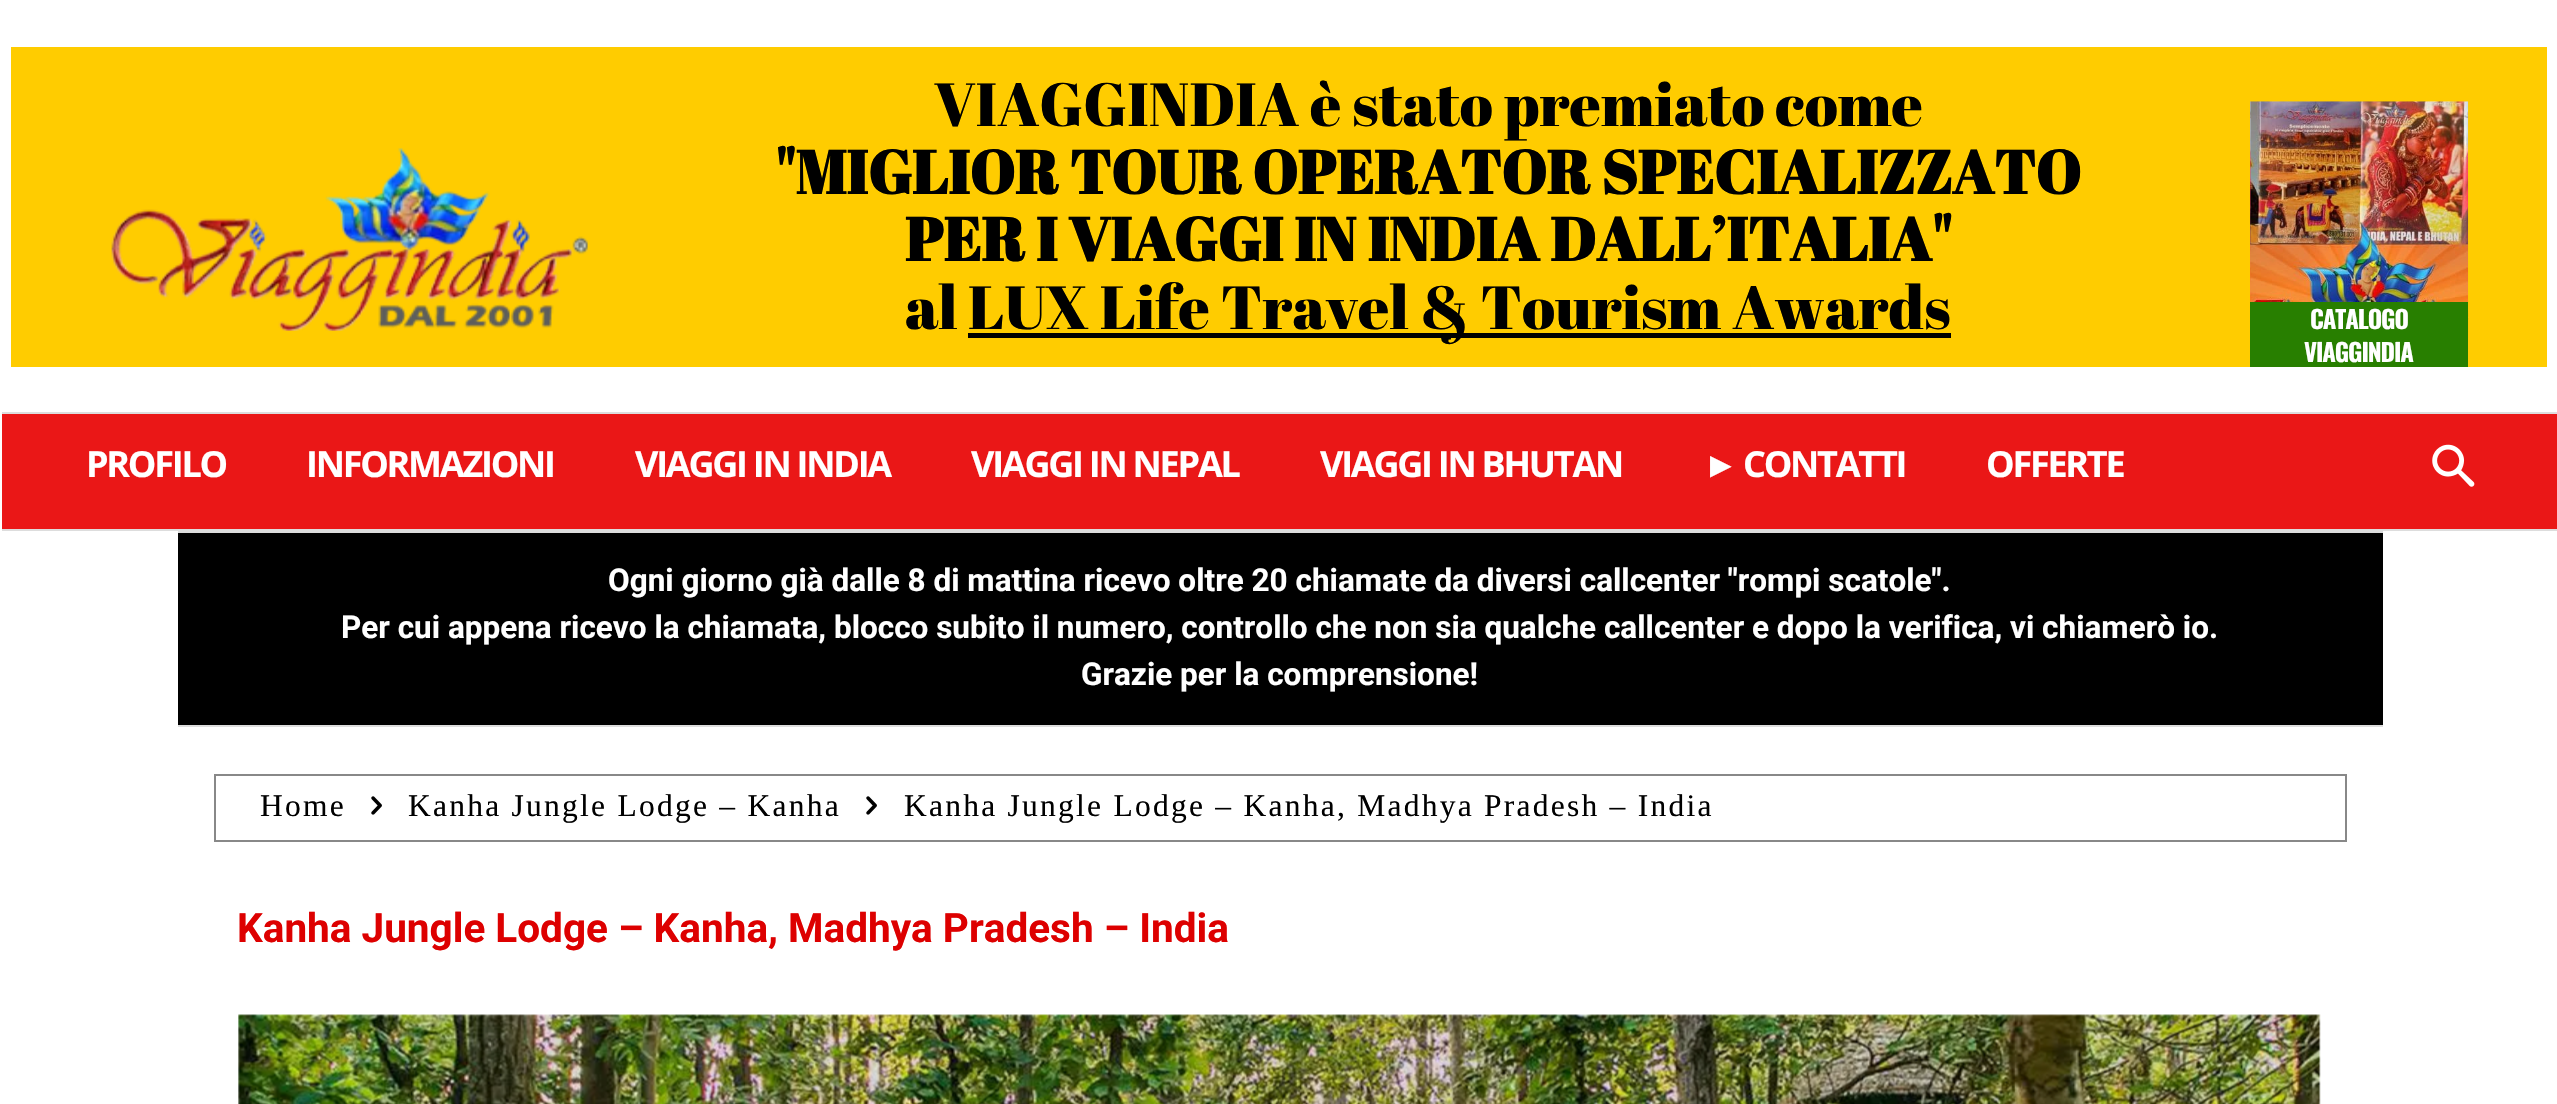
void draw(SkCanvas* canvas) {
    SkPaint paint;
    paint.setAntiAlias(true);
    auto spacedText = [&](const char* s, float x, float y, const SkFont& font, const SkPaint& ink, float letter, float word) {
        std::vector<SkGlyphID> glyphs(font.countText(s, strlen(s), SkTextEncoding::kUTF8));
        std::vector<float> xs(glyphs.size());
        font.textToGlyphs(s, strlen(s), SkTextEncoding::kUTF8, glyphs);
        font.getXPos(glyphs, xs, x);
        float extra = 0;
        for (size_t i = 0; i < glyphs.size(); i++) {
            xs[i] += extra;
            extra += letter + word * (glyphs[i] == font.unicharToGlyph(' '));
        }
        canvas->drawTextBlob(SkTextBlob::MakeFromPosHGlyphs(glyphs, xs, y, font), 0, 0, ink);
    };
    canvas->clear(0xFFFFFFFF);
    paint.setColor(0xFFFFCC00);
    canvas->drawRect(SkRect::MakeXYWH(11, 47, 2536, 320), paint);
    canvas->drawImageRect(SkImages::DeferredFromEncodedData(SkData::MakeFromFileName("img1.png")), SkRect::MakeXYWH(111, 148, 477, 183), SkSamplingOptions());
    SkFont font1(fontMgr->matchFamilyStyle("Abril Fatface", SkFontStyle::Normal()), 60.75f);
    font1.setSubpixel(true);
    paint.setColor(0xFF000000);
    canvas->drawString("VIAGGINDIA è stato premiato come", 934, 126, font1, paint);
    SkFont font2(fontMgr->matchFamilyStyle("Abril Fatface", SkFontStyle::Bold()), 60.75f);
    font2.setSubpixel(true);
    canvas->drawString("\"MIGLIOR TOUR OPERATOR SPECIALIZZATO", 775, 194, font2, paint);
    canvas->drawString("PER I VIAGGI IN INDIA DALL’ITALIA\"", 905, 261, font2, paint);
    canvas->drawString("al", 905, 329, font1, paint);
    canvas->drawRect(SkRect::MakeXYWH(968, 333, 983, 5), paint);
    canvas->drawString("LUX Life Travel & Tourism Awards", 968, 329, font1, paint);
    canvas->drawImageRect(SkImages::DeferredFromEncodedData(SkData::MakeFromFileName("img2.png")), SkRect::MakeXYWH(2250, 101, 219, 266), SkSamplingOptions());
    paint.setColor(0xFF287F00);
    canvas->drawRect(SkRect::MakeXYWH(2250, 302, 218, 65), paint);
    SkFont font3(fontMgr->matchFamilyStyle("Oswald", SkFontStyle::Bold()), 24.75f);
    font3.setSubpixel(true);
    paint.setColor(0xFFFFFFFF);
    spacedText("CATALOGO", 2310, 329, font3, paint, -1.1f, 0);
    spacedText("VIAGGINDIA", 2304, 362, font3, paint, -1.1f, 0);
    paint.setColor(0xFFEA1717);
    canvas->drawRect(SkRect::MakeXYWH(2, 414, 2555, 115), paint);
    paint.setColor(0xFFDDDDDD);
    canvas->drawRect(SkRect::MakeXYWH(2, 412, 2555, 2), paint);
    canvas->drawRect(SkRect::MakeXYWH(2, 529, 2555, 2), paint);
    SkFont font4(fontMgr->matchFamilyStyle("Open Sans", SkFontStyle::Bold()), 36);
    font4.setSubpixel(true);
    paint.setColor(0xFFFFFFFF);
    spacedText("PROFILO", 86, 477, font4, paint, -2.25f, 0);
    spacedText("INFORMAZIONI", 306, 477, font4, paint, -2.25f, 0);
    spacedText("VIAGGI IN INDIA", 635, 477, font4, paint, -2.25f, 0);
    spacedText("VIAGGI IN NEPAL", 971, 477, font4, paint, -2.25f, 0);
    spacedText("VIAGGI IN BHUTAN", 1320, 477, font4, paint, -2.25f, 0);
    SkFont font5(fontMgr->matchFamilyStyle("Liberation Sans", SkFontStyle::Bold()), 36);
    font5.setSubpixel(true);
    spacedText("►", 1703, 477, font5, paint, -2.25f, 0);
    spacedText("CONTATTI", 1743, 477, font4, paint, -2.25f, 0);
    spacedText("OFFERTE", 1986, 477, font4, paint, -2.25f, 0);
    canvas->drawImageRect(SkImages::DeferredFromEncodedData(SkData::MakeFromFileName("img3.png")), SkRect::MakeXYWH(2432, 444, 43, 43), SkSamplingOptions());
    paint.setColor(0xFFDDDDDD);
    canvas->drawRect(SkRect::MakeXYWH(178, 531, 2205, 2), paint);
    canvas->drawRect(SkRect::MakeXYWH(178, 725, 2205, 2), paint);
    paint.setColor(0xFF000000);
    canvas->drawRect(SkRect::MakeXYWH(178, 533, 2205, 192), paint);
    SkFont font6(fontMgr->matchFamilyStyle("Roboto", SkFontStyle::Bold()), 31.5f);
    font6.setSubpixel(true);
    paint.setColor(0xFFFFFFFF);
    canvas->drawString("Ogni giorno già dalle 8 di mattina ricevo oltre 20 chiamate da diversi callcenter \"rompi scatole\".", 608, 591, font6, paint);
    canvas->drawString("Per cui appena ricevo la chiamata, blocco subito il numero, controllo che non sia qualche callcenter e dopo la verifica, vi chiamerò io.", 341, 638, font6, paint);
    canvas->drawString("Grazie per la comprensione!", 1081, 685, font6, paint);
    paint.setStyle(SkPaint::kStroke_Style);
    paint.setStrokeWidth(2);
    paint.setColor(0xFF888888);
    canvas->drawRect(SkRect::MakeXYWH(215, 775, 2131, 66), paint);
    SkFont font7(fontMgr->matchFamilyStyle("Liberation Serif", SkFontStyle::Normal()), 31.5f);
    font7.setSubpixel(true);
    paint.setStyle(SkPaint::kFill_Style);
    paint.setColor(0xFF000000);
    spacedText("Home", 260, 816, font7, paint, 2.25f, 0);
    canvas->drawImageRect(SkImages::DeferredFromEncodedData(SkData::MakeFromFileName("img4.png")), SkRect::MakeXYWH(371, 796, 11, 19), SkSamplingOptions());
    spacedText("Kanha Jungle Lodge – Kanha", 408, 816, font7, paint, 2.25f, 0);
    canvas->drawImageRect(SkImages::DeferredFromEncodedData(SkData::MakeFromFileName("img4.png")), SkRect::MakeXYWH(866, 796, 11, 19), SkSamplingOptions());
    spacedText("Kanha Jungle Lodge – Kanha, Madhya Pradesh – India", 904, 816, font7, paint, 2.25f, 0);
    SkFont font8(fontMgr->matchFamilyStyle("Roboto", SkFontStyle::Bold()), 40.5f);
    font8.setSubpixel(true);
    paint.setColor(0xFFDD0000);
    canvas->drawString("Kanha Jungle Lodge – Kanha, Madhya Pradesh – India", 237, 942, font8, paint);
    canvas->drawImageRect(SkImages::DeferredFromEncodedData(SkData::MakeFromFileName("img5.png")), SkRect::MakeXYWH(238, 1014, 2083, 90), SkSamplingOptions());
}
